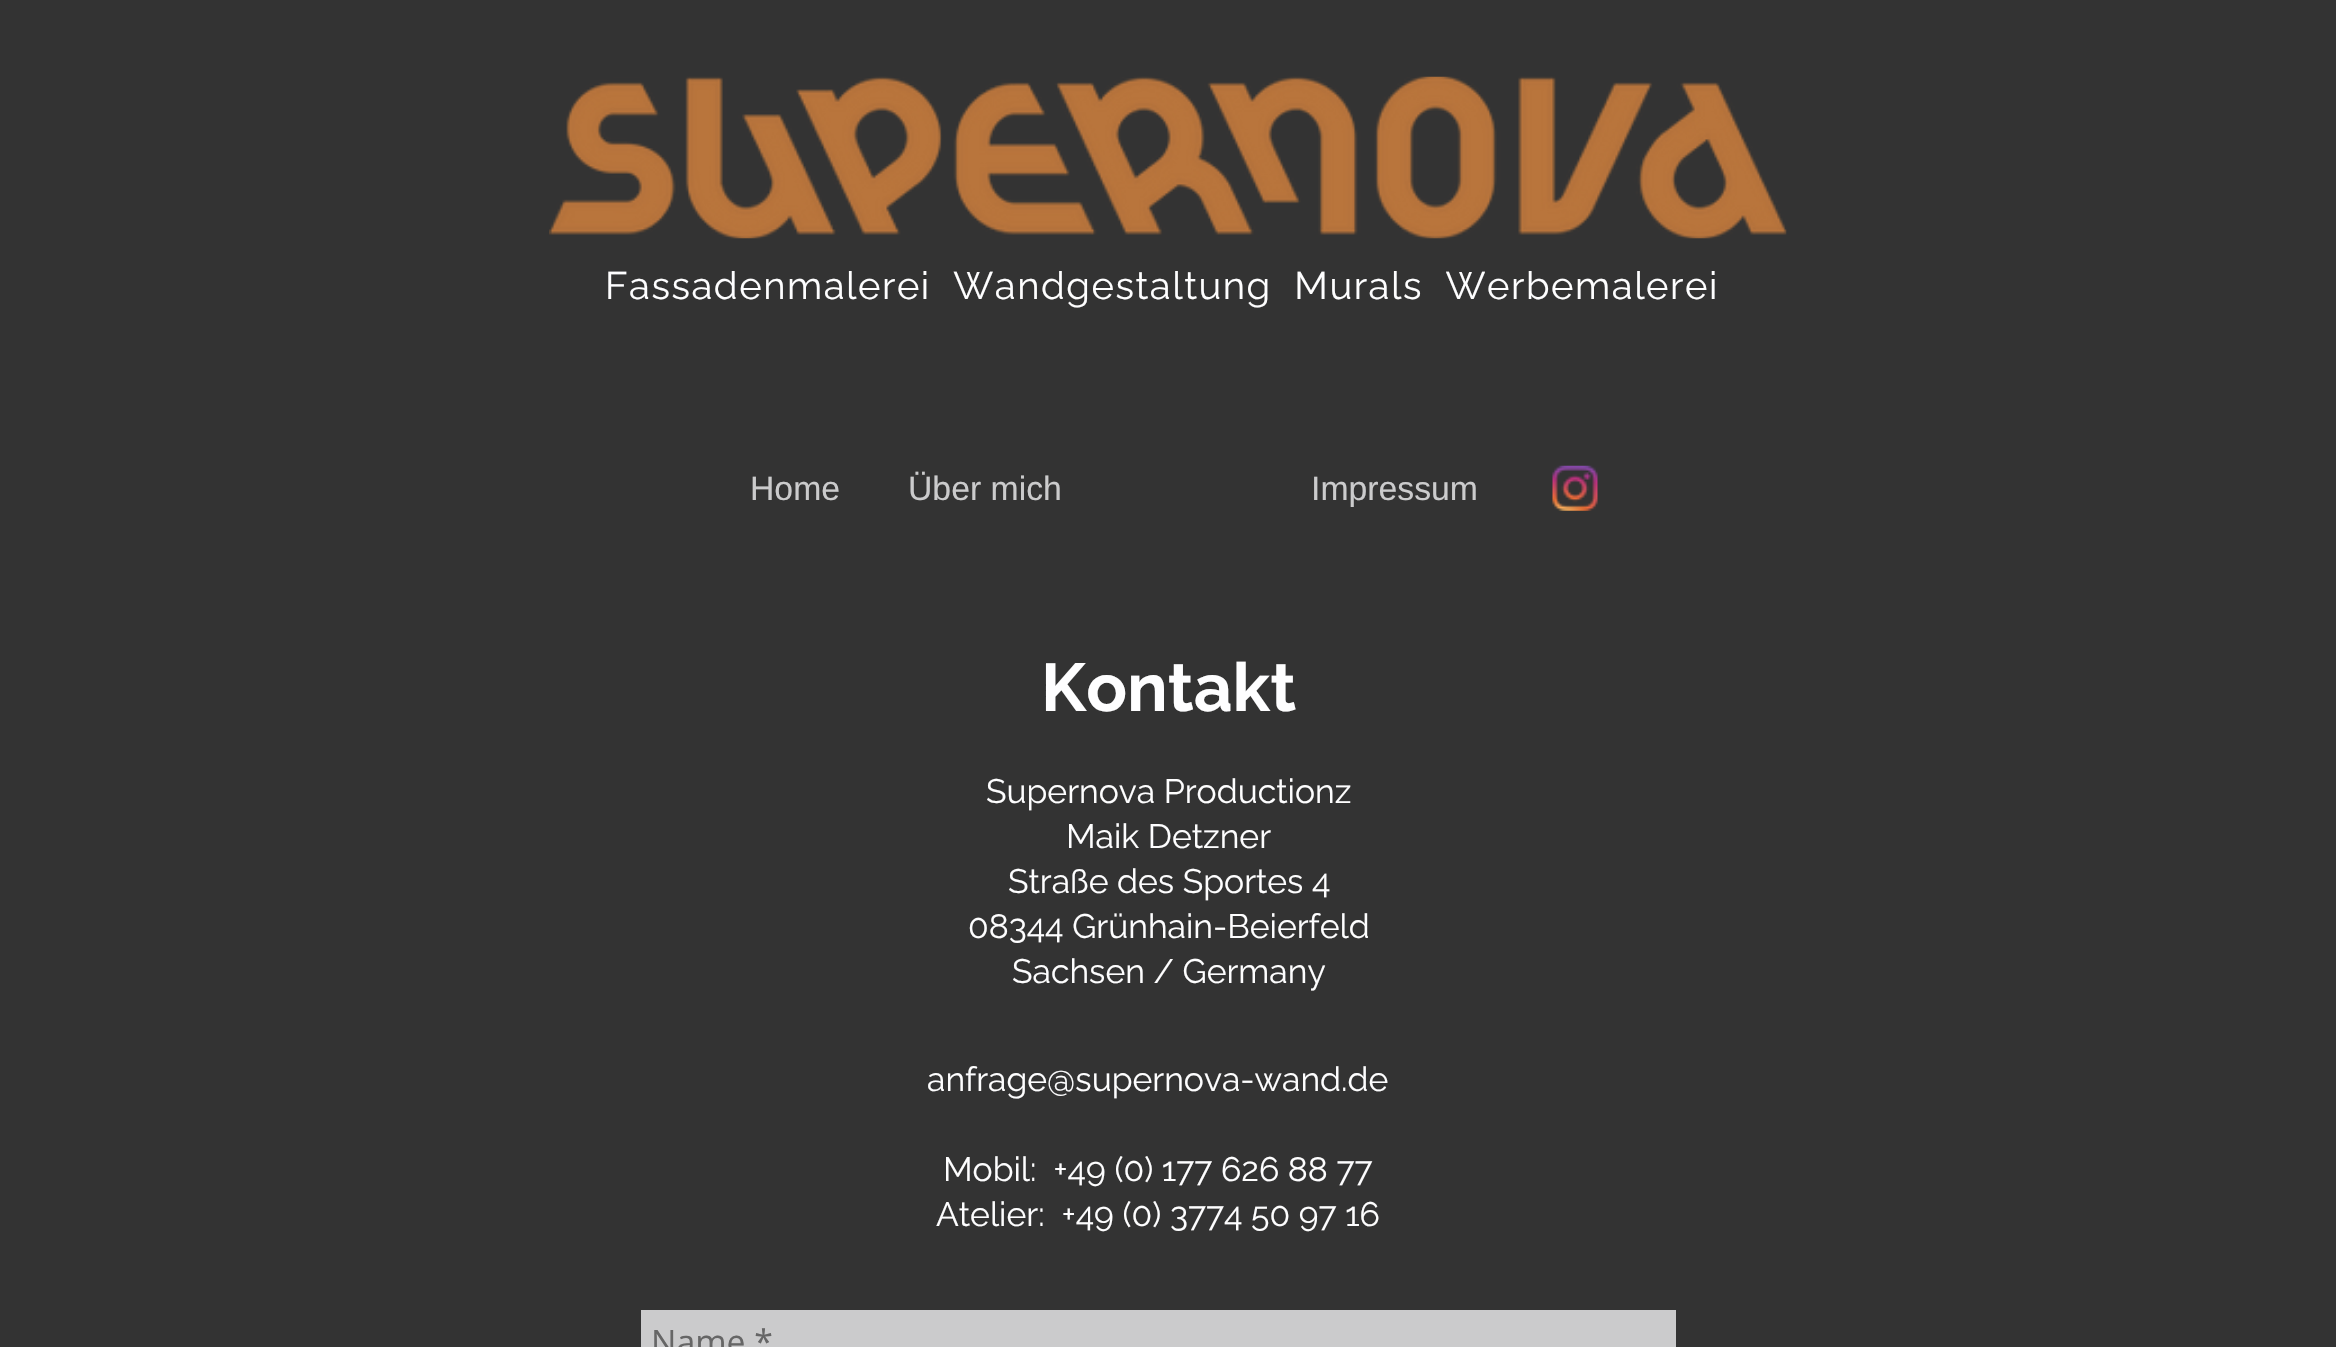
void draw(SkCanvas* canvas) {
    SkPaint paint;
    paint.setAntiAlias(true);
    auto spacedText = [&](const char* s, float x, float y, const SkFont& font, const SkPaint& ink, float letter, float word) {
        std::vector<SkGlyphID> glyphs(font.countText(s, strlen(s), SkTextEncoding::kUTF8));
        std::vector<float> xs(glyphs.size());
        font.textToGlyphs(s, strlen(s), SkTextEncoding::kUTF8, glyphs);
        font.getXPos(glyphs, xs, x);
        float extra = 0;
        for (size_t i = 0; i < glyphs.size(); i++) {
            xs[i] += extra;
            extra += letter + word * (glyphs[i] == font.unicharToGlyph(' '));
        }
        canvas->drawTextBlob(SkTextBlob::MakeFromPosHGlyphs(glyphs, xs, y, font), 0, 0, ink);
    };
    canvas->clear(0xFF333333);
    canvas->drawImageRect(SkImages::DeferredFromEncodedData(SkData::MakeFromFileName("img1.png")), SkRect::MakeXYWH(549, 76, 1238, 163), SkSamplingOptions());
    SkFont font1(fontMgr->matchFamilyStyle("Raleway", SkFontStyle::Normal()), 38.25f);
    font1.setSubpixel(true);
    paint.setColor(0xFFFEFEFF);
    spacedText("Fassadenmalerei  Wandgestaltung  Murals  Werbemalerei", 605, 299, font1, paint, 1.53f, 0);
    SkFont font2(fontMgr->matchFamilyStyle("Liberation Sans", SkFontStyle::Normal()), 33.75f);
    font2.setSubpixel(true);
    paint.setColor(0xFFCBCBCC);
    canvas->drawString("Home", 750, 500, font2, paint);
    canvas->drawString("Über mich", 908, 500, font2, paint);
    canvas->drawString("Impressum", 1311, 500, font2, paint);
    canvas->drawImageRect(SkImages::DeferredFromEncodedData(SkData::MakeFromFileName("img2.png")), SkRect::MakeXYWH(1552, 465, 46, 46), SkSamplingOptions());
    SkFont font3(fontMgr->matchFamilyStyle("Raleway", SkFontStyle::Bold()), 67.5f);
    font3.setSubpixel(true);
    paint.setColor(0xFFFEFEFF);
    canvas->drawString("Kontakt", 1041, 711, font3, paint);
    SkFont font4(fontMgr->matchFamilyStyle("Raleway", SkFontStyle::Normal()), 33.75f);
    font4.setSubpixel(true);
    canvas->drawString("Supernova Productionz", 986, 803, font4, paint);
    canvas->drawString("Maik Detzner", 1066, 848, font4, paint);
    canvas->drawString("Straße des Sportes 4", 1008, 893, font4, paint);
    canvas->drawString("08344 Grünhain-Beierfeld", 968, 938, font4, paint);
    canvas->drawString("Sachsen / Germany", 1012, 983, font4, paint);
    canvas->drawString("anfrage@supernova-wand.de", 927, 1091, font4, paint);
    canvas->drawString("Mobil:  +49 (0) 177 626 88 77", 943, 1181, font4, paint);
    canvas->drawString("Atelier:  +49 (0) 3774 50 97 16", 936, 1226, font4, paint);
    paint.setColor(0xFFCBCBCC);
    canvas->drawRect(SkRect::MakeXYWH(641, 1310, 1035, 37), paint);
    SkFont font5(fontMgr->matchFamilyStyle("Open Sans", SkFontStyle::Normal()), 33.75f);
    font5.setSubpixel(true);
    paint.setColor(0xFF666666);
    canvas->drawString("Name *", 651, 1354, font5, paint);
}
